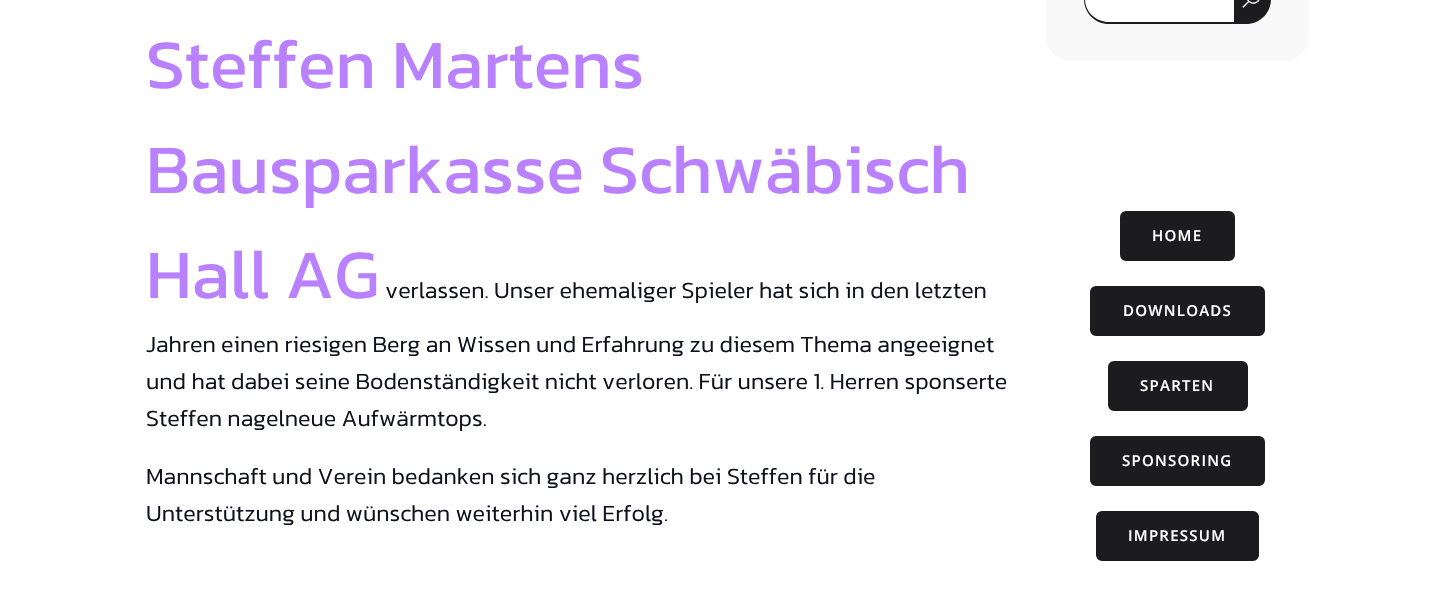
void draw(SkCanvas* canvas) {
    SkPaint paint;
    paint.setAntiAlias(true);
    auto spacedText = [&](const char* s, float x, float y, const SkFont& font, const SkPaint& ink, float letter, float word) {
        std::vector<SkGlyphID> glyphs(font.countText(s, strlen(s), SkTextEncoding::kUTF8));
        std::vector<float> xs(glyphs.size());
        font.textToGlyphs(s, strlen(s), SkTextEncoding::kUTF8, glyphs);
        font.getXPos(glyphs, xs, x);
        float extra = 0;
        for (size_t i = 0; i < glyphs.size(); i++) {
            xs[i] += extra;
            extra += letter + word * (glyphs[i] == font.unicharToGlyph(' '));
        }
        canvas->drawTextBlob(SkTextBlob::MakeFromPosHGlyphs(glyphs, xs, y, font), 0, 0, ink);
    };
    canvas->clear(0xFFFFFFFF);
    SkFont font1(fontMgr->matchFamilyStyle("Kanit", SkFontStyle::Normal()), 70);
    font1.setSubpixel(true);
    paint.setColor(0xFFB980FF);
    canvas->drawString("Steffen Martens", 146, 88, font1, paint);
    canvas->drawString("Bausparkasse Schwäbisch", 146, 193, font1, paint);
    canvas->drawString("Hall AG", 146, 298, font1, paint);
    SkFont font2(fontMgr->matchFamilyStyle("Kanit", SkFontStyle(300, SkFontStyle::kNormal_Width, SkFontStyle::kUpright_Slant)), 23.35f);
    font2.setSubpixel(true);
    paint.setColor(0xFF11111E);
    canvas->drawString("verlassen. Unser ehemaliger Spieler hat sich in den letzten", 385, 298, font2, paint);
    canvas->drawString("Jahren einen riesigen Berg an Wissen und Erfahrung zu diesem Thema angeeignet", 146, 352, font2, paint);
    canvas->drawString("und hat dabei seine Bodenständigkeit nicht verloren. Für unsere 1. Herren sponserte", 146, 389, font2, paint);
    canvas->drawString("Steffen nagelneue Aufwärmtops.", 146, 426, font2, paint);
    canvas->drawString("Mannschaft und Verein bedanken sich ganz herzlich bei Steffen für die", 146, 484, font2, paint);
    canvas->drawString("Unterstützung und wünschen weiterhin viel Erfolg.", 146, 521, font2, paint);
    paint.setColor(0xFFF9F9F9);
    canvas->drawRoundRect(SkRect::MakeXYWH(1046, -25, 263, 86), 25, 25, paint);
    paint.setColor(0xFFFFFFFF);
    canvas->drawPath(SkPathBuilder().moveTo(1109, -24).lineTo(1234, -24).lineTo(1234, 23).lineTo(1109, 23).cubicTo(1095.5f, 23, 1085, 12.5f, 1085, -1).lineTo(1085, 0).cubicTo(1085, -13.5f, 1095.5f, -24, 1109, -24).close().detach(), paint);
    paint.setColor(0xFF1C1C1F);
    canvas->drawPath(SkPathBuilder(SkPathFillType::kEvenOdd).moveTo(1109, -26).lineTo(1234, -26).lineTo(1234, 24).lineTo(1109, 24).cubicTo(1095, 24, 1084, 13, 1084, -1).cubicTo(1084, -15, 1095, -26, 1109, -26).close().moveTo(1109, -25).lineTo(1234, -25).lineTo(1234, 22).lineTo(1109, 22).cubicTo(1096, 22, 1085, 12, 1085, -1).cubicTo(1085, -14, 1096, -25, 1109, -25).close().detach(), paint);
    canvas->drawPath(SkPathBuilder().moveTo(1234, -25).lineTo(1246, -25).cubicTo(1260, -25, 1271, -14, 1271, 0).lineTo(1271, -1).cubicTo(1271, 13, 1260, 24, 1246, 24).lineTo(1234, 24).close().detach(), paint);
    paint.setColor(0x1A1C1C1F);
    canvas->drawPath(SkPathBuilder(SkPathFillType::kEvenOdd).moveTo(1234, -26).lineTo(1246, -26).cubicTo(1260, -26, 1271, -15, 1271, -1).cubicTo(1271, 13, 1260, 24, 1246, 24).lineTo(1234, 24).close().moveTo(1234, -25).lineTo(1246, -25).cubicTo(1259, -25, 1270, -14, 1270, -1).cubicTo(1270, 12, 1259, 22, 1246, 22).lineTo(1234, 22).close().detach(), paint);
    canvas->drawImageRect(SkImages::DeferredFromEncodedData(SkData::MakeFromFileName("img1.png")), SkRect::MakeXYWH(1242, 0, 18, 8), SkSamplingOptions());
    paint.setColor(0xFF1C1C1F);
    canvas->drawRoundRect(SkRect::MakeXYWH(1121.5f, 212.5f, 112, 47), 4.5f, 4.5f, paint);
    paint.setStyle(SkPaint::kStroke_Style);
    paint.setStrokeWidth(3);
    canvas->drawRoundRect(SkRect::MakeXYWH(1121.5f, 212.5f, 112, 47), 4.5f, 4.5f, paint);
    SkFont font3(fontMgr->matchFamilyStyle("Open Sans", SkFontStyle(600, SkFontStyle::kNormal_Width, SkFontStyle::kUpright_Slant)), 15);
    font3.setSubpixel(true);
    paint.setStyle(SkPaint::kFill_Style);
    paint.setColor(0xFFFFFFFF);
    spacedText("HOME", 1152, 241, font3, paint, 1.25f, 0);
    paint.setColor(0xFF1C1C1F);
    canvas->drawRoundRect(SkRect::MakeXYWH(1091.5f, 287.5f, 172, 47), 4.5f, 4.5f, paint);
    paint.setStyle(SkPaint::kStroke_Style);
    canvas->drawRoundRect(SkRect::MakeXYWH(1091.5f, 287.5f, 172, 47), 4.5f, 4.5f, paint);
    paint.setStyle(SkPaint::kFill_Style);
    paint.setColor(0xFFFFFFFF);
    spacedText("DOWNLOADS", 1123, 316, font3, paint, 1.25f, 0);
    paint.setColor(0xFF1C1C1F);
    canvas->drawRoundRect(SkRect::MakeXYWH(1109.5f, 362.5f, 137, 47), 4.5f, 4.5f, paint);
    paint.setStyle(SkPaint::kStroke_Style);
    canvas->drawRoundRect(SkRect::MakeXYWH(1109.5f, 362.5f, 137, 47), 4.5f, 4.5f, paint);
    paint.setStyle(SkPaint::kFill_Style);
    paint.setColor(0xFFFFFFFF);
    spacedText("SPARTEN", 1140, 391, font3, paint, 1.25f, 0);
    paint.setColor(0xFF1C1C1F);
    canvas->drawRoundRect(SkRect::MakeXYWH(1091.5f, 437.5f, 172, 47), 4.5f, 4.5f, paint);
    paint.setStyle(SkPaint::kStroke_Style);
    canvas->drawRoundRect(SkRect::MakeXYWH(1091.5f, 437.5f, 172, 47), 4.5f, 4.5f, paint);
    paint.setStyle(SkPaint::kFill_Style);
    paint.setColor(0xFFFFFFFF);
    spacedText("SPONSORING", 1122, 466, font3, paint, 1.25f, 0);
    paint.setColor(0xFF1C1C1F);
    canvas->drawRoundRect(SkRect::MakeXYWH(1097.5f, 512.5f, 160, 47), 4.5f, 4.5f, paint);
    paint.setStyle(SkPaint::kStroke_Style);
    canvas->drawRoundRect(SkRect::MakeXYWH(1097.5f, 512.5f, 160, 47), 4.5f, 4.5f, paint);
    paint.setStyle(SkPaint::kFill_Style);
    paint.setColor(0xFFFFFFFF);
    spacedText("IMPRESSUM", 1128, 541, font3, paint, 1.25f, 0);
}
